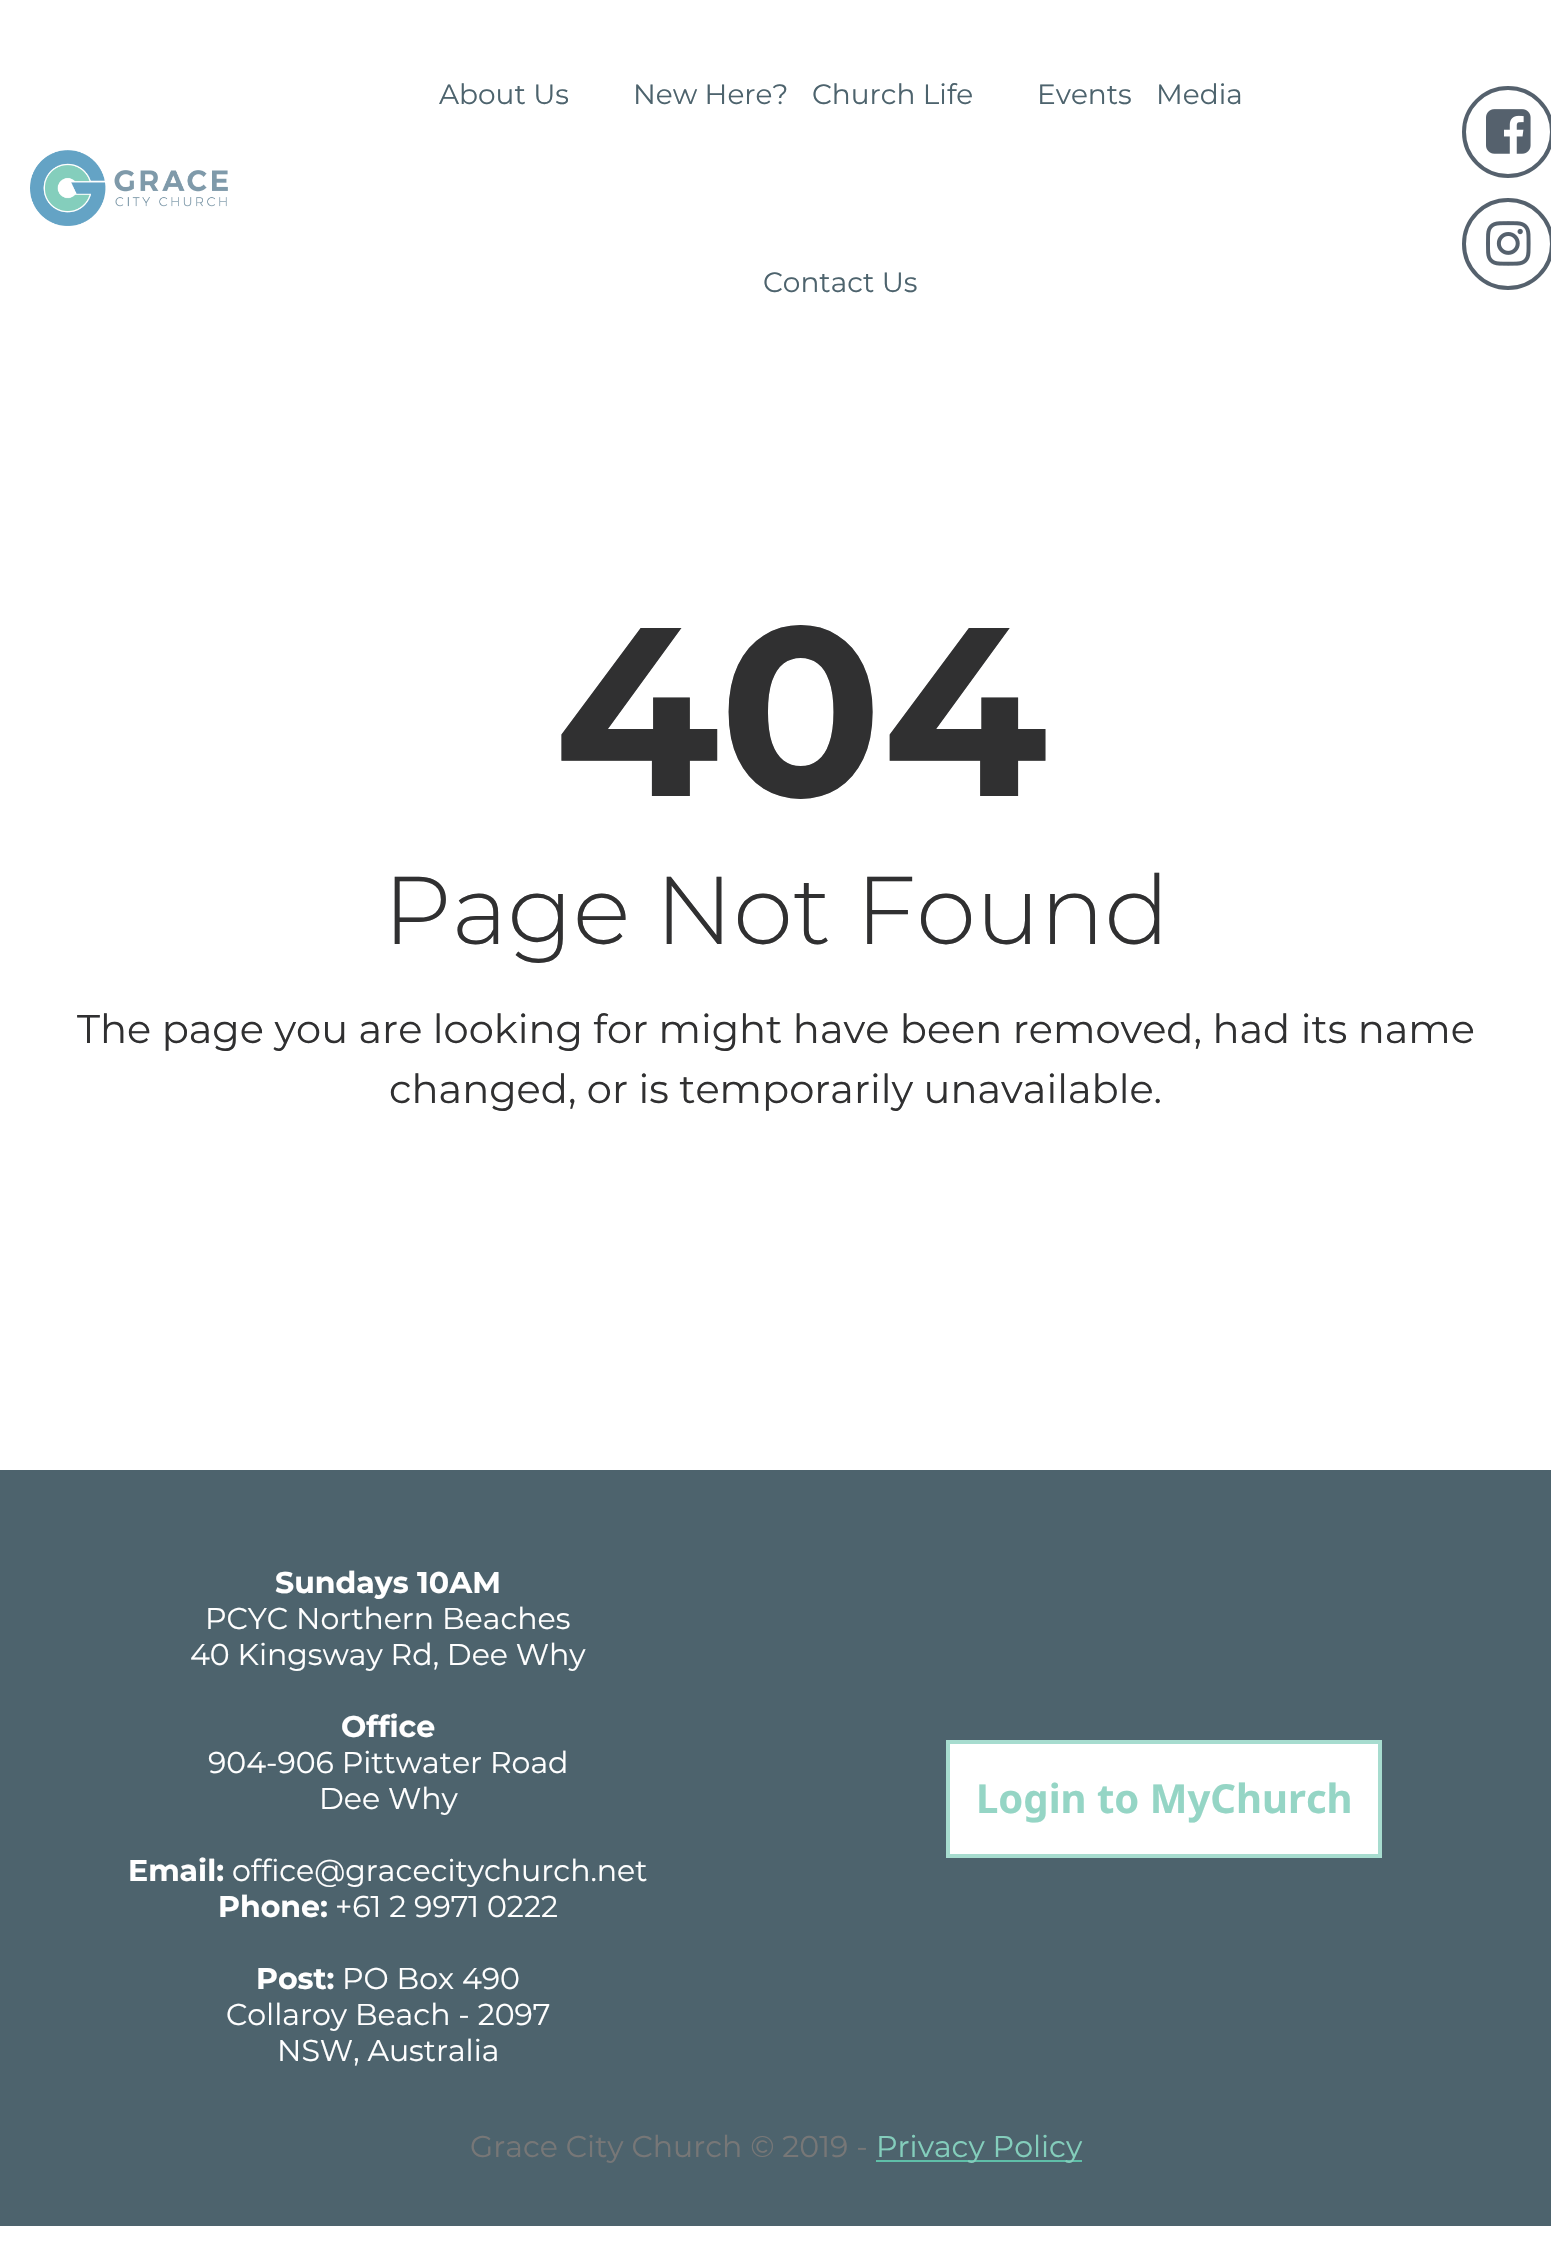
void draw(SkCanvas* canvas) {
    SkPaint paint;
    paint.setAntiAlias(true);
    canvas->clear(0xFFFFFFFF);
    canvas->drawImageRect(SkImages::DeferredFromEncodedData(SkData::MakeFromFileName("img1.png")), SkRect::MakeXYWH(30, 150, 198, 76), SkSamplingOptions());
    SkFont font1(fontMgr->matchFamilyStyle("Montserrat", SkFontStyle::Normal()), 28);
    font1.setSubpixel(true);
    paint.setColor(0xFF4D636D);
    canvas->drawString("About Us", 439, 104, font1, paint);
    canvas->drawString("New Here?", 633, 104, font1, paint);
    canvas->drawString("Church Life", 812, 104, font1, paint);
    canvas->drawString("Events", 1037, 104, font1, paint);
    canvas->drawString("Media", 1156, 104, font1, paint);
    canvas->drawString("Contact Us", 763, 292, font1, paint);
    paint.setStyle(SkPaint::kStroke_Style);
    paint.setStrokeWidth(4);
    paint.setColor(0xFF55616D);
    canvas->drawCircle(1508, 132, 44, paint);
    canvas->drawImageRect(SkImages::DeferredFromEncodedData(SkData::MakeFromFileName("img2.png")), SkRect::MakeXYWH(1486, 109, 45, 45), SkSamplingOptions());
    canvas->drawCircle(1508, 244, 44, paint);
    canvas->drawImageRect(SkImages::DeferredFromEncodedData(SkData::MakeFromFileName("img3.png")), SkRect::MakeXYWH(1486, 221, 45, 45), SkSamplingOptions());
    SkFont font2(fontMgr->matchFamilyStyle("Montserrat", SkFontStyle::Bold()), 240);
    font2.setSubpixel(true);
    paint.setStyle(SkPaint::kFill_Style);
    paint.setColor(0xFF303031);
    canvas->drawString("404", 554, 796, font2, paint);
    SkFont font3(fontMgr->matchFamilyStyle("Montserrat", SkFontStyle(300, SkFontStyle::kNormal_Width, SkFontStyle::kUpright_Slant)), 96);
    font3.setSubpixel(true);
    canvas->drawString("Page Not Found", 383, 944, font3, paint);
    SkFont font4(fontMgr->matchFamilyStyle("Montserrat", SkFontStyle::Normal()), 40);
    font4.setSubpixel(true);
    canvas->drawString("The page you are looking for might have been removed, had its name", 77, 1043, font4, paint);
    canvas->drawString("changed, or is temporarily unavailable.", 389, 1103, font4, paint);
    paint.setColor(0xFF4D636D);
    canvas->drawRect(SkRect::MakeXYWH(0, 1470, 1551, 756), paint);
    SkFont font5(fontMgr->matchFamilyStyle("Montserrat", SkFontStyle::Bold()), 30);
    font5.setSubpixel(true);
    paint.setColor(0xFFFFFFFF);
    canvas->drawString("Sundays 10AM", 275, 1593, font5, paint);
    SkFont font6(fontMgr->matchFamilyStyle("Montserrat", SkFontStyle::Normal()), 30);
    font6.setSubpixel(true);
    canvas->drawString("PCYC Northern Beaches", 205, 1629, font6, paint);
    canvas->drawString("40 Kingsway Rd, Dee Why", 190, 1665, font6, paint);
    canvas->drawString("Office", 341, 1737, font5, paint);
    canvas->drawString("904-906 Pittwater Road", 208, 1773, font6, paint);
    canvas->drawString("Dee Why", 319, 1809, font6, paint);
    canvas->drawString("Email:", 128, 1881, font5, paint);
    canvas->drawString("office@gracecitychurch.net", 232, 1881, font6, paint);
    canvas->drawString("Phone:", 218, 1917, font5, paint);
    canvas->drawString("+61 2 9971 0222", 335, 1917, font6, paint);
    canvas->drawString("Post:", 256, 1989, font5, paint);
    canvas->drawString("PO Box 490", 342, 1989, font6, paint);
    canvas->drawString("Collaroy Beach - 2097", 226, 2025, font6, paint);
    canvas->drawString("NSW, Australia", 277, 2061, font6, paint);
    canvas->drawRect(SkRect::MakeXYWH(948, 1742, 432, 114), paint);
    paint.setStyle(SkPaint::kStroke_Style);
    paint.setColor(0xFFA7DCCF);
    canvas->drawRect(SkRect::MakeXYWH(948, 1742, 432, 114), paint);
    SkFont font7(fontMgr->matchFamilyStyle("Noto Sans", SkFontStyle::Bold()), 40);
    font7.setSubpixel(true);
    paint.setStyle(SkPaint::kFill_Style);
    paint.setColor(0xFF95D5C5);
    canvas->drawString("Login to MyChurch", 976, 1813, font7, paint);
    paint.setColor(0xFF777777);
    canvas->drawString("Grace City Church © 2019 -", 470, 2157, font6, paint);
    paint.setColor(0xFF5FBFA8);
    canvas->drawRect(SkRect::MakeXYWH(876, 2160, 206, 2), paint);
    paint.setColor(0xFF84CEBC);
    canvas->drawString("Privacy Policy", 876, 2157, font6, paint);
}
